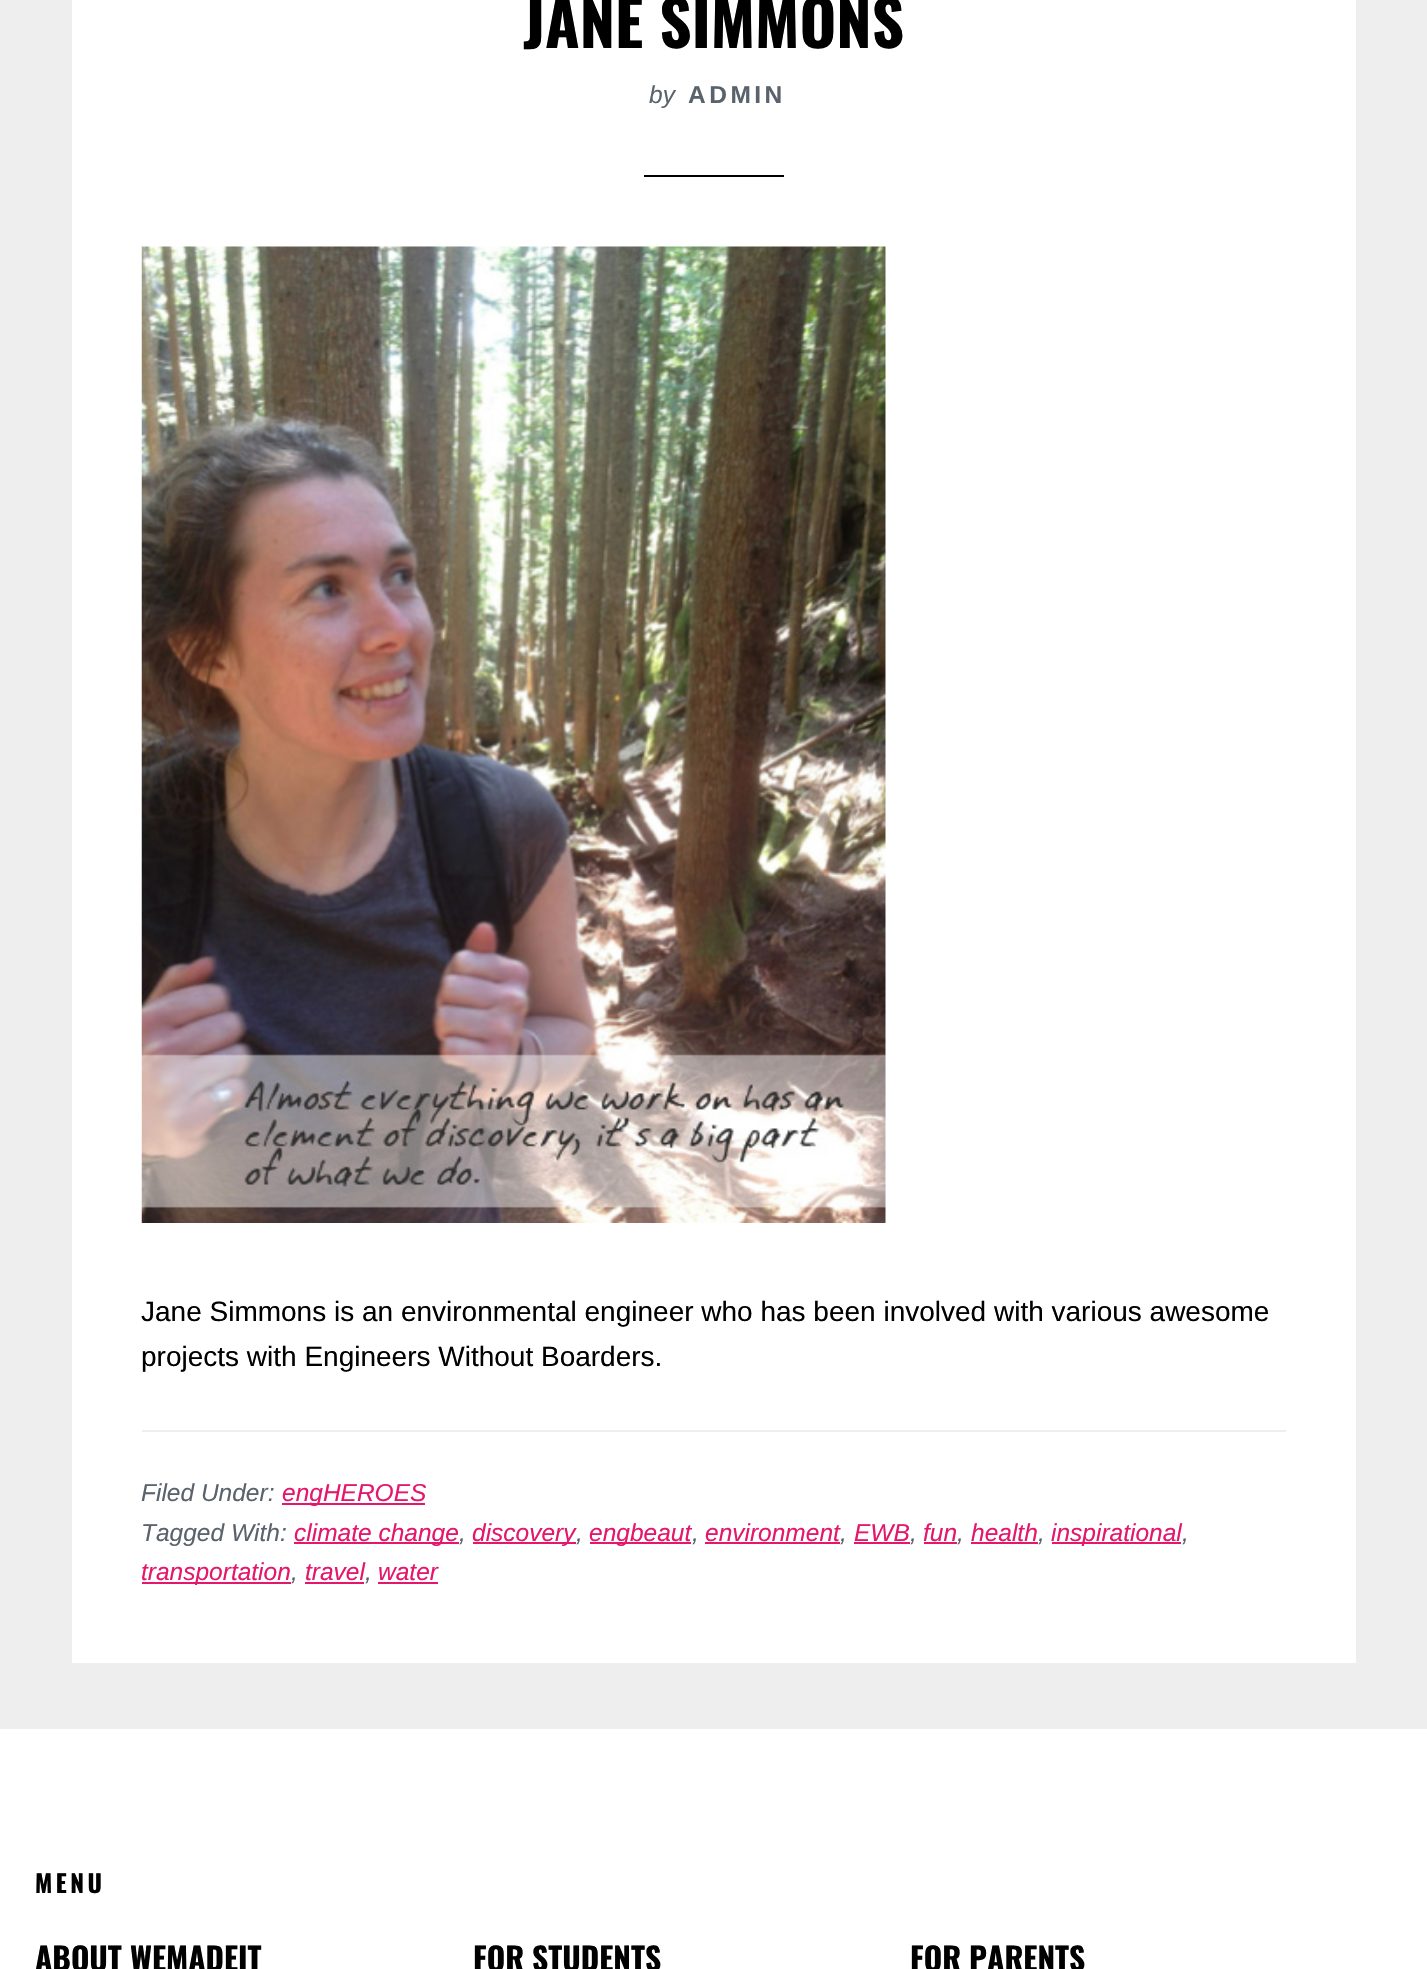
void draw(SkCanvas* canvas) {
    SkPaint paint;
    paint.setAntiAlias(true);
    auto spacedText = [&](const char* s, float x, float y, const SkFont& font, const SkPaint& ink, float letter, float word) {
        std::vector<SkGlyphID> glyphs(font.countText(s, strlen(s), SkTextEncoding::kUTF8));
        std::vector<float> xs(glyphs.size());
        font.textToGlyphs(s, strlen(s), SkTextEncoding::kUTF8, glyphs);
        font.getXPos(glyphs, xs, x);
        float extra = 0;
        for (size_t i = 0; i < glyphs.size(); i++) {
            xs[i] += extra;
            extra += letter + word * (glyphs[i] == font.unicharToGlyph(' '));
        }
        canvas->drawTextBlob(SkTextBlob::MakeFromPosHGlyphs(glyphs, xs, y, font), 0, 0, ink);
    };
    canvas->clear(0xFFEEEEEE);
    paint.setColor(0xFFFFFFFF);
    canvas->drawRect(SkRect::MakeXYWH(72, 0, 1284, 1663), paint);
    SkFont font1(fontMgr->matchFamilyStyle("Oswald", SkFontStyle::Bold()), 63);
    font1.setSubpixel(true);
    paint.setColor(0xFF000000);
    canvas->drawString("JANE SIMMONS", 523, 48, font1, paint);
    SkFont font2(fontMgr->matchFamilyStyle("Liberation Sans", SkFontStyle::Italic()), 24.5f);
    font2.setSubpixel(true);
    paint.setColor(0xFF5A636C);
    canvas->drawString("by", 649, 103, font2, paint);
    SkFont font3(fontMgr->matchFamilyStyle("Liberation Sans", SkFontStyle::Bold()), 24.5f);
    font3.setSubpixel(true);
    spacedText("ADMIN", 688, 103, font3, paint, 3.5f, 0);
    paint.setColor(0xFF000000);
    canvas->drawRect(SkRect::MakeXYWH(644, 175, 140, 2), paint);
    canvas->drawImageRect(SkImages::DeferredFromEncodedData(SkData::MakeFromFileName("img1.png")), SkRect::MakeXYWH(141, 246, 745, 977), SkSamplingOptions());
    SkFont font4(fontMgr->matchFamilyStyle("Liberation Sans", SkFontStyle::Normal()), 28);
    font4.setSubpixel(true);
    canvas->drawString("Jane Simmons is an environmental engineer who has been involved with various awesome", 141, 1321, font4, paint);
    canvas->drawString("projects with Engineers Without Boarders.", 141, 1366, font4, paint);
    paint.setColor(0xFFEEEEEE);
    canvas->drawRect(SkRect::MakeXYWH(142, 1430, 1144, 2), paint);
    paint.setColor(0xFF5A636C);
    canvas->drawString("Filed Under:", 141, 1501, font2, paint);
    paint.setColor(0xFFE4176C);
    canvas->drawRect(SkRect::MakeXYWH(282, 1503, 143, 2), paint);
    canvas->drawString("engHEROES", 282, 1501, font2, paint);
    paint.setColor(0xFF5A636C);
    canvas->drawString("Tagged With:", 141, 1541, font2, paint);
    paint.setColor(0xFFE4176C);
    canvas->drawRect(SkRect::MakeXYWH(294, 1542, 165, 2), paint);
    canvas->drawString("climate change", 294, 1541, font2, paint);
    paint.setColor(0xFF5A636C);
    canvas->drawString(",", 459, 1541, font2, paint);
    paint.setColor(0xFFE4176C);
    canvas->drawRect(SkRect::MakeXYWH(473, 1542, 103, 2), paint);
    canvas->drawString("discovery", 472, 1541, font2, paint);
    paint.setColor(0xFF5A636C);
    canvas->drawString(",", 576, 1541, font2, paint);
    paint.setColor(0xFFE4176C);
    canvas->drawRect(SkRect::MakeXYWH(590, 1542, 101, 2), paint);
    canvas->drawString("engbeaut", 589, 1541, font2, paint);
    paint.setColor(0xFF5A636C);
    canvas->drawString(",", 692, 1541, font2, paint);
    paint.setColor(0xFFE4176C);
    canvas->drawString("environment", 705, 1541, font2, paint);
    canvas->drawRect(SkRect::MakeXYWH(705, 1542, 135, 2), paint);
    paint.setColor(0xFF5A636C);
    canvas->drawString(",", 840, 1541, font2, paint);
    paint.setColor(0xFFE4176C);
    canvas->drawString("EWB", 854, 1541, font2, paint);
    canvas->drawRect(SkRect::MakeXYWH(854, 1542, 56, 2), paint);
    paint.setColor(0xFF5A636C);
    canvas->drawString(",", 910, 1541, font2, paint);
    paint.setColor(0xFFE4176C);
    canvas->drawString("fun", 923, 1541, font2, paint);
    canvas->drawRect(SkRect::MakeXYWH(924, 1542, 33, 2), paint);
    paint.setColor(0xFF5A636C);
    canvas->drawString(",", 957, 1541, font2, paint);
    paint.setColor(0xFFE4176C);
    canvas->drawString("health", 971, 1541, font2, paint);
    canvas->drawRect(SkRect::MakeXYWH(971, 1542, 67, 2), paint);
    paint.setColor(0xFF5A636C);
    canvas->drawString(",", 1038, 1541, font2, paint);
    paint.setColor(0xFFE4176C);
    canvas->drawRect(SkRect::MakeXYWH(1052, 1542, 129, 2), paint);
    canvas->drawString("inspirational", 1051, 1541, font2, paint);
    paint.setColor(0xFF5A636C);
    canvas->drawString(",", 1182, 1541, font2, paint);
    paint.setColor(0xFFE4176C);
    canvas->drawRect(SkRect::MakeXYWH(142, 1582, 149, 2), paint);
    canvas->drawString("transportation", 141, 1580, font2, paint);
    paint.setColor(0xFF5A636C);
    canvas->drawString(",", 291, 1580, font2, paint);
    paint.setColor(0xFFE4176C);
    canvas->drawString("travel", 305, 1580, font2, paint);
    canvas->drawRect(SkRect::MakeXYWH(305, 1582, 59, 2), paint);
    paint.setColor(0xFF5A636C);
    canvas->drawString(",", 365, 1580, font2, paint);
    paint.setColor(0xFFE4176C);
    canvas->drawString("water", 378, 1580, font2, paint);
    canvas->drawRect(SkRect::MakeXYWH(378, 1582, 60, 2), paint);
    paint.setColor(0xFFFFFFFF);
    canvas->drawRect(SkRect::MakeXYWH(0, 1729, 1427, 240), paint);
    SkFont font5(fontMgr->matchFamilyStyle("Oswald", SkFontStyle::Bold()), 24.5f);
    font5.setSubpixel(true);
    paint.setColor(0xFF000000);
    spacedText("MENU", 35, 1893, font5, paint, 3.5f, 0);
    SkFont font6(fontMgr->matchFamilyStyle("Oswald", SkFontStyle::Bold()), 31.5f);
    font6.setSubpixel(true);
    canvas->drawString("ABOUT WEMADEIT", 35, 1971, font6, paint);
    canvas->drawString("FOR STUDENTS", 473, 1971, font6, paint);
    canvas->drawString("FOR PARENTS", 910, 1971, font6, paint);
}
